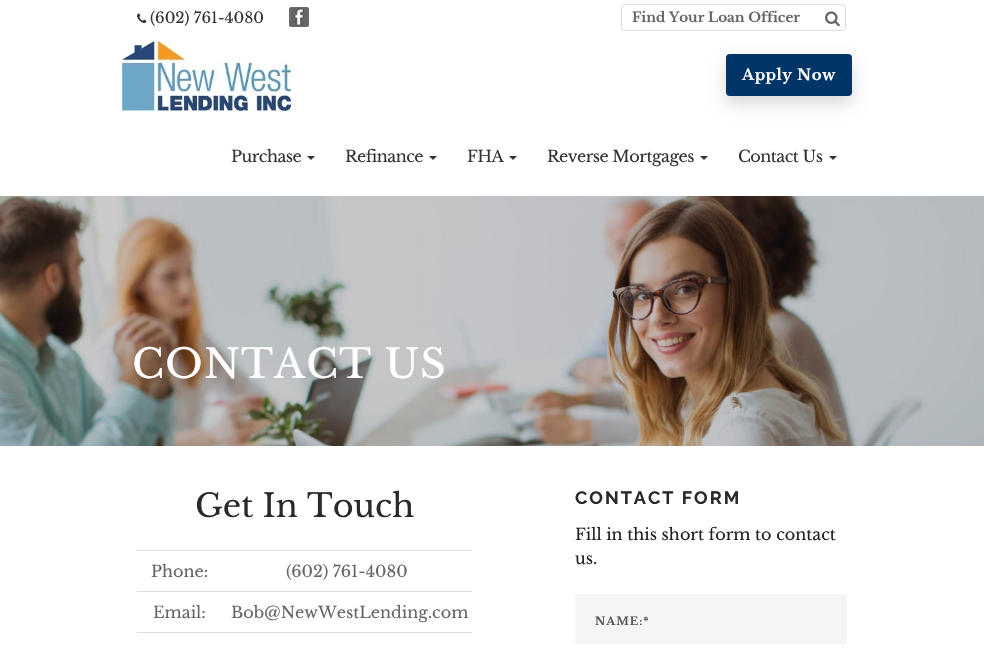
void draw(SkCanvas* canvas) {
    SkPaint paint;
    paint.setAntiAlias(true);
    auto spacedText = [&](const char* s, float x, float y, const SkFont& font, const SkPaint& ink, float letter, float word) {
        std::vector<SkGlyphID> glyphs(font.countText(s, strlen(s), SkTextEncoding::kUTF8));
        std::vector<float> xs(glyphs.size());
        font.textToGlyphs(s, strlen(s), SkTextEncoding::kUTF8, glyphs);
        font.getXPos(glyphs, xs, x);
        float extra = 0;
        for (size_t i = 0; i < glyphs.size(); i++) {
            xs[i] += extra;
            extra += letter + word * (glyphs[i] == font.unicharToGlyph(' '));
        }
        canvas->drawTextBlob(SkTextBlob::MakeFromPosHGlyphs(glyphs, xs, y, font), 0, 0, ink);
    };
    canvas->clear(0xFFFFFFFF);
    canvas->drawImageRect(SkImages::DeferredFromEncodedData(SkData::MakeFromFileName("img1.png")), SkRect::MakeXYWH(137, 13, 10, 10), SkSamplingOptions());
    SkFont font1(fontMgr->matchFamilyStyle("Libre Baskerville", SkFontStyle::Normal()), 15);
    font1.setSubpixel(true);
    paint.setColor(0xFF343434);
    canvas->drawString("(602) 761-4080", 150, 23, font1, paint);
    canvas->drawImageRect(SkImages::DeferredFromEncodedData(SkData::MakeFromFileName("img2.png")), SkRect::MakeXYWH(289, 7, 20, 20), SkSamplingOptions());
    paint.setStyle(SkPaint::kStroke_Style);
    paint.setStrokeWidth(1);
    paint.setColor(0xFFDDDDDD);
    canvas->drawRoundRect(SkRect::MakeXYWH(621.5f, 4.5f, 224, 26), 3.5f, 3.5f, paint);
    SkFont font2(fontMgr->matchFamilyStyle("Libre Baskerville", SkFontStyle::Bold()), 13.5f);
    font2.setSubpixel(true);
    paint.setStyle(SkPaint::kFill_Style);
    paint.setColor(0xFF666666);
    canvas->drawString("Find Your Loan Officer", 632, 22, font2, paint);
    canvas->drawImageRect(SkImages::DeferredFromEncodedData(SkData::MakeFromFileName("img3.png")), SkRect::MakeXYWH(825, 11, 15, 16), SkSamplingOptions());
    canvas->drawImageRect(SkImages::DeferredFromEncodedData(SkData::MakeFromFileName("img4.png")), SkRect::MakeXYWH(122, 41, 169, 70), SkSamplingOptions());
    paint.setColor(0x26010101);
    paint.setMaskFilter(SkMaskFilter::MakeBlur(kNormal_SkBlurStyle, 8));
    canvas->drawRoundRect(SkRect::MakeXYWH(726, 62, 126, 42), 4, 4, paint);
    paint.setMaskFilter(nullptr);
    paint.setColor(0xFF013467);
    canvas->drawRoundRect(SkRect::MakeXYWH(726, 54, 126, 42), 4, 4, paint);
    SkFont font3(fontMgr->matchFamilyStyle("Libre Baskerville", SkFontStyle::Bold()), 15);
    font3.setSubpixel(true);
    paint.setColor(0xFFFFFFFF);
    spacedText("Apply Now", 742, 80, font3, paint, 0.5f, 0);
    SkFont font4(fontMgr->matchFamilyStyle("Libre Baskerville", SkFontStyle::Normal()), 16);
    font4.setSubpixel(true);
    paint.setColor(0xFF343434);
    spacedText("Purchase", 231, 162, font4, paint, -0.5f, 0);
    canvas->drawPath(SkPathBuilder().moveTo(307, 156).lineTo(315, 156).lineTo(311, 160).close().detach(), paint);
    spacedText("Refinance", 345, 162, font4, paint, -0.5f, 0);
    canvas->drawPath(SkPathBuilder().moveTo(429, 156).lineTo(437, 156).lineTo(433, 160).close().detach(), paint);
    spacedText("FHA", 467, 162, font4, paint, -0.5f, 0);
    canvas->drawPath(SkPathBuilder().moveTo(509, 156).lineTo(517, 156).lineTo(513, 160).close().detach(), paint);
    spacedText("Reverse Mortgages", 547, 162, font4, paint, -0.5f, 0);
    canvas->drawPath(SkPathBuilder().moveTo(700, 156).lineTo(708, 156).lineTo(704, 160).close().detach(), paint);
    spacedText("Contact Us", 738, 162, font4, paint, -0.5f, 0);
    canvas->drawPath(SkPathBuilder().moveTo(829, 156).lineTo(837, 156).lineTo(833, 160).close().detach(), paint);
    canvas->drawImageRect(SkImages::DeferredFromEncodedData(SkData::MakeFromFileName("img5.png")), SkRect::MakeXYWH(0, 196, 984, 250), SkSamplingOptions());
    SkFont font5(fontMgr->matchFamilyStyle("Libre Baskerville", SkFontStyle::Normal()), 40);
    font5.setSubpixel(true);
    paint.setColor(0xFFFFFFFF);
    spacedText("CONTACT US", 132, 378, font5, paint, 1, 0);
    SkFont font6(fontMgr->matchFamilyStyle("Libre Baskerville", SkFontStyle::Normal()), 32);
    font6.setSubpixel(true);
    paint.setColor(0xFF292929);
    canvas->drawString("Get In Touch", 195, 517, font6, paint);
    paint.setColor(0xFF666666);
    canvas->drawString("Phone:", 151, 577, font4, paint);
    paint.setColor(0xFFDDDDDD);
    canvas->drawRect(SkRect::MakeXYWH(137, 550, 335, 1), paint);
    paint.setColor(0xFF666666);
    canvas->drawString("(602) 761-4080", 286, 577, font4, paint);
    canvas->drawString("Email:", 153, 618, font4, paint);
    paint.setColor(0xFFDDDDDD);
    canvas->drawRect(SkRect::MakeXYWH(137, 591, 335, 1), paint);
    paint.setColor(0xFF666666);
    canvas->drawString("Bob@NewWestLending.com", 231, 618, font4, paint);
    paint.setColor(0xFFDDDDDD);
    canvas->drawRect(SkRect::MakeXYWH(137, 632, 335, 1), paint);
    SkFont font7(fontMgr->matchFamilyStyle("Raleway", SkFontStyle::Bold()), 18);
    font7.setSubpixel(true);
    paint.setColor(0xFF292929);
    spacedText("CONTACT FORM", 575, 504, font7, paint, 2, 0);
    paint.setColor(0xFF222222);
    canvas->drawString("Fill in this short form to contact", 575, 540, font4, paint);
    canvas->drawString("us.", 575, 564, font4, paint);
    paint.setColor(0xFFF5F5F5);
    canvas->drawRect(SkRect::MakeXYWH(575, 594, 272, 50), paint);
    SkFont font8(fontMgr->matchFamilyStyle("Libre Baskerville", SkFontStyle::Bold()), 11);
    font8.setSubpixel(true);
    paint.setColor(0xFF555555);
    spacedText("NAME:*", 595, 625, font8, paint, 1, 0);
}
